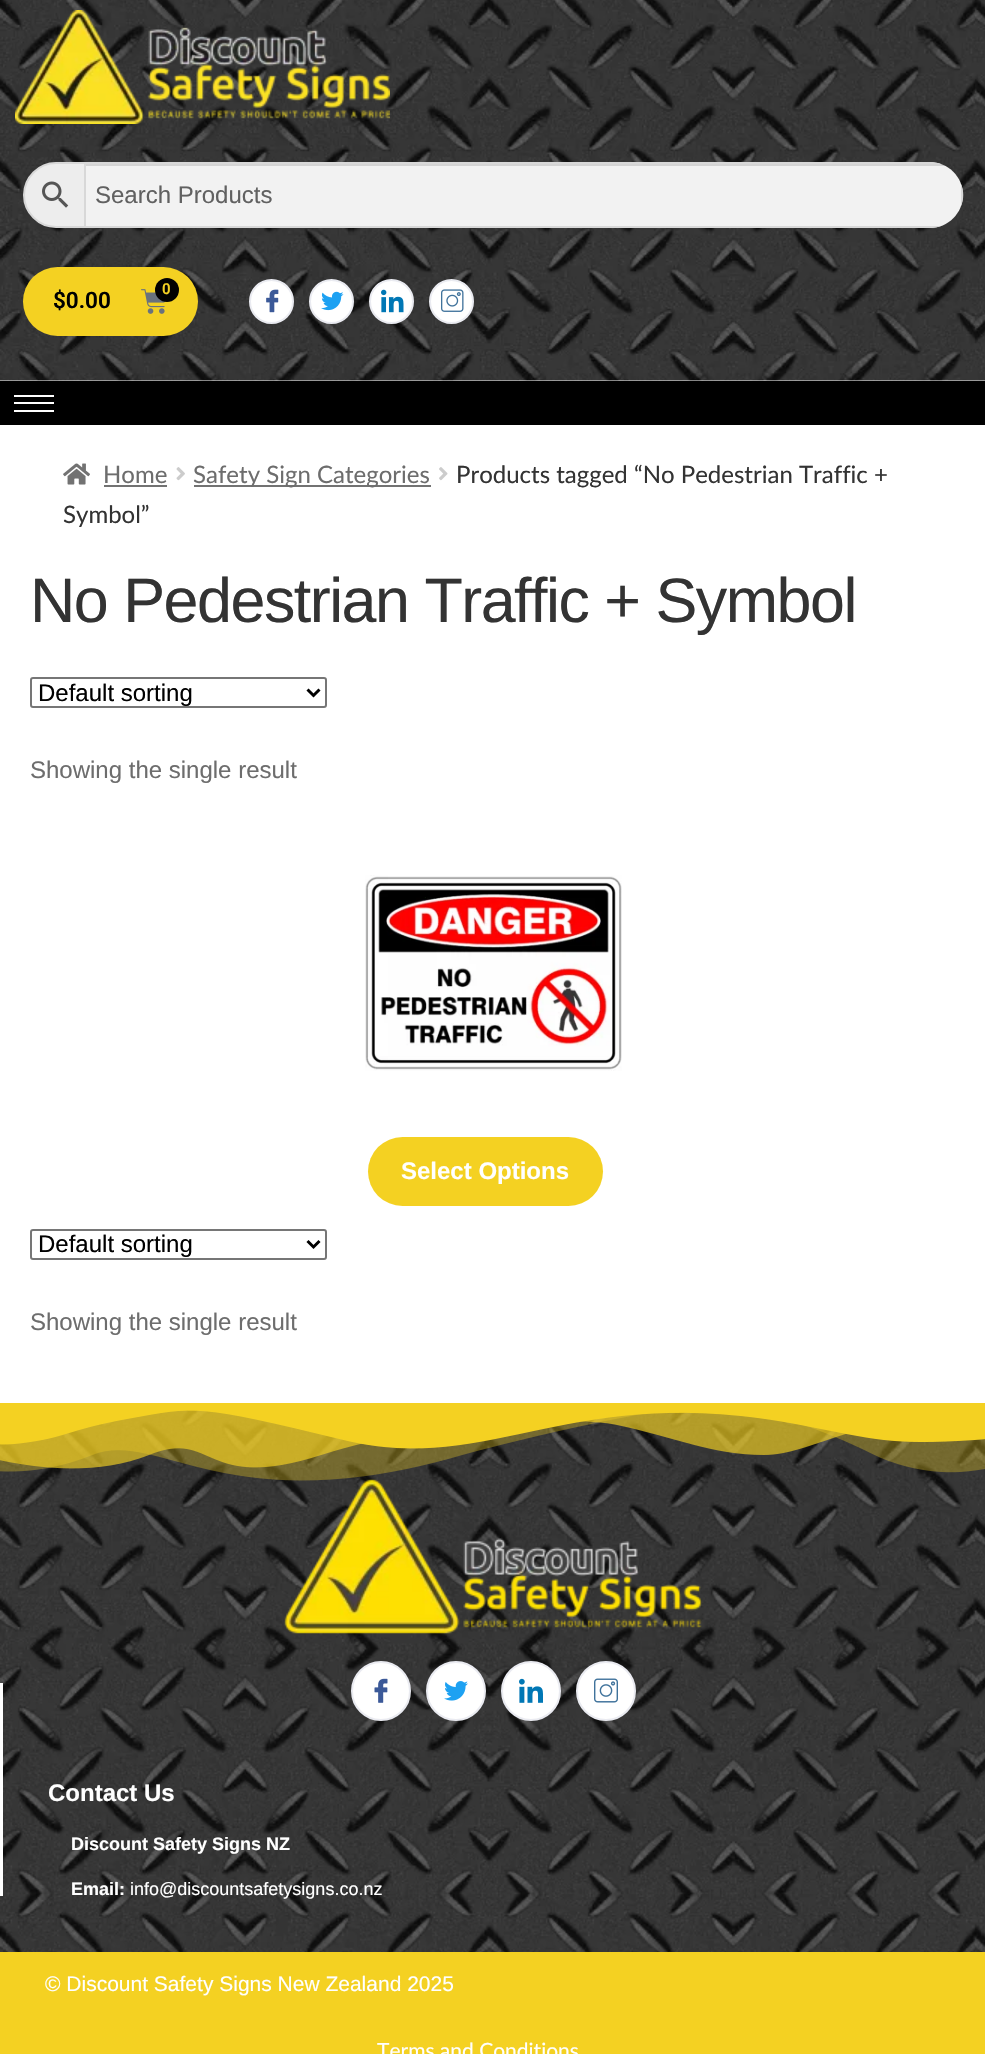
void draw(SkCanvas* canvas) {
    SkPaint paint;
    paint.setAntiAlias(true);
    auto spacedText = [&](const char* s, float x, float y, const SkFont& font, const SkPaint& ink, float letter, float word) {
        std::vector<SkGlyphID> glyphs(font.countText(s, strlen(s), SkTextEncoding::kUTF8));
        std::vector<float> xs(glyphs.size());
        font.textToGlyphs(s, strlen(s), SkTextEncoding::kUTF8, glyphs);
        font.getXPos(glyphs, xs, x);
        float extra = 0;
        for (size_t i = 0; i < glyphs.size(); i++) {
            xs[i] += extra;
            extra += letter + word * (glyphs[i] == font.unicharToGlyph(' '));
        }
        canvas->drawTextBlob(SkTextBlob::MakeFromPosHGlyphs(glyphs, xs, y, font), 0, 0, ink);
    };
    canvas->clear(0xFFFFFFFF);
    canvas->drawImageRect(SkImages::DeferredFromEncodedData(SkData::MakeFromFileName("img1.png")), SkRect::MakeXYWH(0, 0, 985, 381), SkSamplingOptions());
    canvas->drawImageRect(SkImages::DeferredFromEncodedData(SkData::MakeFromFileName("img2.png")), SkRect::MakeXYWH(15, 10, 375, 114), SkSamplingOptions());
    paint.setColor(0xFFEDEDED);
    canvas->drawPath(SkPathBuilder().moveTo(56, 163).lineTo(85, 163).lineTo(85, 227).lineTo(56, 227).cubicTo(38.5f, 227, 24, 212.5f, 24, 195).cubicTo(24, 177.5f, 38.5f, 163, 56, 163).close().detach(), paint);
    paint.setStyle(SkPaint::kStroke_Style);
    paint.setStrokeWidth(2);
    paint.setColor(0xFFD8D8D8);
    canvas->drawPath(SkPathBuilder().moveTo(56, 163).lineTo(85, 163).lineTo(85, 227).lineTo(56, 227).cubicTo(38.5f, 227, 24, 212.5f, 24, 195).cubicTo(24, 177.5f, 38.5f, 163, 56, 163).close().detach(), paint);
    canvas->drawImageRect(SkImages::DeferredFromEncodedData(SkData::MakeFromFileName("img3.png")), SkRect::MakeXYWH(42, 181, 27, 27), SkSamplingOptions());
    paint.setStyle(SkPaint::kFill_Style);
    paint.setColor(0xFFF2F2F2);
    canvas->drawPath(SkPathBuilder().moveTo(84, 162).lineTo(930, 162).cubicTo(948, 162, 963, 177, 963, 195).cubicTo(963, 213, 948, 228, 930, 228).lineTo(84, 228).close().detach(), paint);
    canvas->save();
    canvas->clipPath(SkPathBuilder().moveTo(84, 162).lineTo(930, 162).cubicTo(948, 162, 963, 177, 963, 195).cubicTo(963, 213, 948, 228, 930, 228).lineTo(84, 228).close().detach(), true);
    paint.setColor(0x1F000000);
    canvas->drawRect(SkRect::MakeXYWH(86, 164, 859, 2), paint);
    canvas->restore();
    paint.setColor(0xFFD8D8D8);
    canvas->drawPath(SkPathBuilder(SkPathFillType::kEvenOdd).moveTo(84, 162).lineTo(84, 228).lineTo(930, 228).cubicTo(934, 228, 938, 227, 941, 226).lineTo(86, 226).lineTo(86, 164).lineTo(941, 164).cubicTo(938, 163, 934, 162, 930, 162).close().moveTo(961, 184).lineTo(961, 206).cubicTo(964, 199, 964, 191, 961, 184).close().detach(), paint);
    SkFont font1(fontMgr->matchFamilyStyle("Liberation Sans", SkFontStyle::Normal()), 24);
    font1.setSubpixel(true);
    paint.setColor(0xFF616161);
    canvas->drawString("Search Products", 95, 203, font1, paint);
    paint.setColor(0xFFF4D122);
    canvas->drawRoundRect(SkRect::MakeXYWH(23, 267, 175, 69), 34.5f, 34.5f, paint);
    SkFont font2(fontMgr->matchFamilyStyle("Roboto", SkFontStyle(600, SkFontStyle::kNormal_Width, SkFontStyle::kUpright_Slant)), 22.5f);
    font2.setSubpixel(true);
    paint.setColor(0xFF000000);
    canvas->drawString("$0.00", 53, 308, font2, paint);
    canvas->drawImageRect(SkImages::DeferredFromEncodedData(SkData::MakeFromFileName("img4.png")), SkRect::MakeXYWH(141, 289, 25, 25), SkSamplingOptions());
    paint.setColor(0xFF020101);
    canvas->drawCircle(167, 290, 12, paint);
    SkFont font3(fontMgr->matchFamilyStyle("Roboto", SkFontStyle(600, SkFontStyle::kNormal_Width, SkFontStyle::kUpright_Slant)), 15);
    font3.setSubpixel(true);
    paint.setColor(0xFFF4D122);
    canvas->drawString("0", 162, 294, font3, paint);
    paint.setColor(0xFFFFFFFF);
    canvas->drawCircle(271.5f, 301.5f, 21.5f, paint);
    paint.setStyle(SkPaint::kStroke_Style);
    paint.setColor(0xFFEAEBF1);
    canvas->drawCircle(271.5f, 301.5f, 21.5f, paint);
    canvas->drawImageRect(SkImages::DeferredFromEncodedData(SkData::MakeFromFileName("img5.png")), SkRect::MakeXYWH(266, 289, 13, 24), SkSamplingOptions());
    paint.setStyle(SkPaint::kFill_Style);
    paint.setColor(0xFFFFFFFF);
    canvas->drawCircle(331.5f, 301.5f, 21.5f, paint);
    paint.setStyle(SkPaint::kStroke_Style);
    paint.setColor(0xFFEAEBF1);
    canvas->drawCircle(331.5f, 301.5f, 21.5f, paint);
    canvas->drawImageRect(SkImages::DeferredFromEncodedData(SkData::MakeFromFileName("img6.png")), SkRect::MakeXYWH(321, 291, 23, 20), SkSamplingOptions());
    paint.setStyle(SkPaint::kFill_Style);
    paint.setColor(0xFFFFFFFF);
    canvas->drawCircle(391.5f, 301.5f, 21.5f, paint);
    paint.setStyle(SkPaint::kStroke_Style);
    paint.setColor(0xFFEAEBF1);
    canvas->drawCircle(391.5f, 301.5f, 21.5f, paint);
    canvas->drawImageRect(SkImages::DeferredFromEncodedData(SkData::MakeFromFileName("img7.png")), SkRect::MakeXYWH(381, 289, 23, 24), SkSamplingOptions());
    paint.setStyle(SkPaint::kFill_Style);
    paint.setColor(0xFFFFFFFF);
    canvas->drawCircle(451.5f, 301.5f, 21.5f, paint);
    paint.setStyle(SkPaint::kStroke_Style);
    paint.setColor(0xFFEAEBF1);
    canvas->drawCircle(451.5f, 301.5f, 21.5f, paint);
    canvas->drawImageRect(SkImages::DeferredFromEncodedData(SkData::MakeFromFileName("img8.png")), SkRect::MakeXYWH(441, 289, 23, 23), SkSamplingOptions());
    paint.setStyle(SkPaint::kFill_Style);
    paint.setColor(0xFF000000);
    canvas->drawRect(SkRect::MakeXYWH(0, 381, 985, 44), paint);
    paint.setColor(0xFFFFFFFF);
    canvas->drawRect(SkRect::MakeXYWH(14, 395, 40, 2), paint);
    canvas->drawRect(SkRect::MakeXYWH(14, 402, 40, 2), paint);
    canvas->drawRect(SkRect::MakeXYWH(14, 410, 40, 2), paint);
    canvas->drawImageRect(SkImages::DeferredFromEncodedData(SkData::MakeFromFileName("img9.png")), SkRect::MakeXYWH(63, 463, 27, 22), SkSamplingOptions());
    SkFont font4(fontMgr->matchFamilyStyle("Lato", SkFontStyle::Normal()), 24);
    font4.setSubpixel(true);
    paint.setColor(0xFF6D6D6D);
    canvas->drawString("Home", 103, 483, font4, paint);
    paint.setColor(0xFF727272);
    canvas->drawRect(SkRect::MakeXYWH(104, 485, 63, 2), paint);
    canvas->drawImageRect(SkImages::DeferredFromEncodedData(SkData::MakeFromFileName("img10.png")), SkRect::MakeXYWH(176, 467, 9, 14), SkSamplingOptions());
    canvas->drawRect(SkRect::MakeXYWH(194, 485, 237, 2), paint);
    paint.setColor(0xFF6D6D6D);
    canvas->drawString("Safety Sign Categories", 193, 483, font4, paint);
    canvas->drawImageRect(SkImages::DeferredFromEncodedData(SkData::MakeFromFileName("img11.png")), SkRect::MakeXYWH(439, 467, 9, 14), SkSamplingOptions());
    paint.setColor(0xFF333333);
    canvas->drawString("Products tagged “No Pedestrian Traffic +", 456, 483, font4, paint);
    canvas->drawString("Symbol”", 63, 523, font4, paint);
    SkFont font5(fontMgr->matchFamilyStyle("Liberation Sans", SkFontStyle::Normal()), 62.8f);
    font5.setSubpixel(true);
    spacedText("No Pedestrian Traffic + Symbol", 30, 622, font5, paint, -1.5f, 0);
    paint.setStyle(SkPaint::kStroke_Style);
    paint.setColor(0xFF767676);
    canvas->drawRoundRect(SkRect::MakeXYWH(31, 678, 295, 29), 2, 2, paint);
    paint.setStrokeWidth(3);
    paint.setColor(0xFF000000);
    canvas->drawPath(SkPathBuilder().moveTo(307.5f, 689.5f).lineTo(313.5f, 695.5f).lineTo(319.5f, 689.5f).detach(), paint);
    paint.setStyle(SkPaint::kFill_Style);
    canvas->drawString("Default sorting", 38, 701, font1, paint);
    paint.setColor(0xFF6D6D6D);
    canvas->drawString("Showing the single result", 30, 778, font1, paint);
    canvas->drawImageRect(SkImages::DeferredFromEncodedData(SkData::MakeFromFileName("img12.png")), SkRect::MakeXYWH(365, 875, 257, 196), SkSamplingOptions());
    paint.setColor(0xFFF4D122);
    canvas->drawRoundRect(SkRect::MakeXYWH(368, 1137, 235, 69), 34.5f, 34.5f, paint);
    SkFont font6(fontMgr->matchFamilyStyle("Liberation Sans", SkFontStyle::Bold()), 24);
    font6.setSubpixel(true);
    paint.setColor(0xFFFFFFFF);
    canvas->drawString("Select Options", 401, 1179, font6, paint);
    paint.setStyle(SkPaint::kStroke_Style);
    paint.setStrokeWidth(2);
    paint.setColor(0xFF767676);
    canvas->drawRoundRect(SkRect::MakeXYWH(31, 1230, 295, 29), 2, 2, paint);
    paint.setStrokeWidth(3);
    paint.setColor(0xFF000000);
    canvas->drawPath(SkPathBuilder().moveTo(307.5f, 1241).lineTo(313.5f, 1247).lineTo(319.5f, 1241).detach(), paint);
    paint.setStyle(SkPaint::kFill_Style);
    canvas->drawString("Default sorting", 38, 1252, font1, paint);
    paint.setColor(0xFF6D6D6D);
    canvas->drawString("Showing the single result", 30, 1330, font1, paint);
    canvas->drawImageRect(SkImages::DeferredFromEncodedData(SkData::MakeFromFileName("img13.png")), SkRect::MakeXYWH(0, 1410, 985, 542), SkSamplingOptions());
    canvas->drawImageRect(SkImages::DeferredFromEncodedData(SkData::MakeFromFileName("img15.png")), SkRect::MakeXYWH(284, 1479, 418, 155), SkSamplingOptions());
    canvas->drawImageRect(SkImages::DeferredFromEncodedData(SkData::MakeFromFileName("img14.png")), SkRect::MakeXYWH(0, 1403, 985, 78), SkSamplingOptions());
    paint.setColor(0xFFFFFFFF);
    canvas->drawCircle(381, 1691, 29, paint);
    paint.setStyle(SkPaint::kStroke_Style);
    paint.setStrokeWidth(2);
    paint.setColor(0xFFEAEBF1);
    canvas->drawCircle(381, 1691, 29, paint);
    canvas->drawImageRect(SkImages::DeferredFromEncodedData(SkData::MakeFromFileName("img16.png")), SkRect::MakeXYWH(374, 1678, 14, 25), SkSamplingOptions());
    paint.setStyle(SkPaint::kFill_Style);
    paint.setColor(0xFFFFFFFF);
    canvas->drawCircle(456, 1691, 29, paint);
    paint.setStyle(SkPaint::kStroke_Style);
    paint.setColor(0xFFEAEBF1);
    canvas->drawCircle(456, 1691, 29, paint);
    canvas->drawImageRect(SkImages::DeferredFromEncodedData(SkData::MakeFromFileName("img17.png")), SkRect::MakeXYWH(444, 1681, 24, 20), SkSamplingOptions());
    paint.setStyle(SkPaint::kFill_Style);
    paint.setColor(0xFFFFFFFF);
    canvas->drawCircle(531, 1691, 29, paint);
    paint.setStyle(SkPaint::kStroke_Style);
    paint.setColor(0xFFEAEBF1);
    canvas->drawCircle(531, 1691, 29, paint);
    canvas->drawImageRect(SkImages::DeferredFromEncodedData(SkData::MakeFromFileName("img18.png")), SkRect::MakeXYWH(519, 1678, 24, 25), SkSamplingOptions());
    paint.setStyle(SkPaint::kFill_Style);
    paint.setColor(0xFFFFFFFF);
    canvas->drawCircle(606, 1691, 29, paint);
    paint.setStyle(SkPaint::kStroke_Style);
    paint.setColor(0xFFEAEBF1);
    canvas->drawCircle(606, 1691, 29, paint);
    canvas->drawImageRect(SkImages::DeferredFromEncodedData(SkData::MakeFromFileName("img19.png")), SkRect::MakeXYWH(594, 1678, 24, 25), SkSamplingOptions());
    paint.setStyle(SkPaint::kFill_Style);
    paint.setColor(0xFFFFFFFF);
    canvas->drawRect(SkRect::MakeXYWH(0, 1683, 3, 213), paint);
    canvas->drawString("Contact Us", 48, 1801, font6, paint);
    SkFont font7(fontMgr->matchFamilyStyle("Liberation Sans", SkFontStyle::Bold()), 18);
    font7.setSubpixel(true);
    canvas->drawString("Discount Safety Signs NZ", 71, 1850, font7, paint);
    canvas->drawString("Email:", 71, 1895, font7, paint);
    SkFont font8(fontMgr->matchFamilyStyle("Liberation Sans", SkFontStyle::Normal()), 18);
    font8.setSubpixel(true);
    canvas->drawString("info@discountsafetysigns.co.nz", 130, 1895, font8, paint);
    paint.setColor(0xFFF4D122);
    canvas->drawRect(SkRect::MakeXYWH(0, 1952, 985, 102), paint);
    SkFont font9(fontMgr->matchFamilyStyle("Liberation Sans", SkFontStyle::Normal()), 21);
    font9.setSubpixel(true);
    paint.setColor(0xFFFFFFFF);
    canvas->drawString("© Discount Safety Signs New Zealand 2025", 45, 1991, font9, paint);
    SkFont font10(fontMgr->matchFamilyStyle("Lato", SkFontStyle::Normal()), 21);
    font10.setSubpixel(true);
    canvas->drawString("Terms and Conditions", 377, 2058, font10, paint);
}
